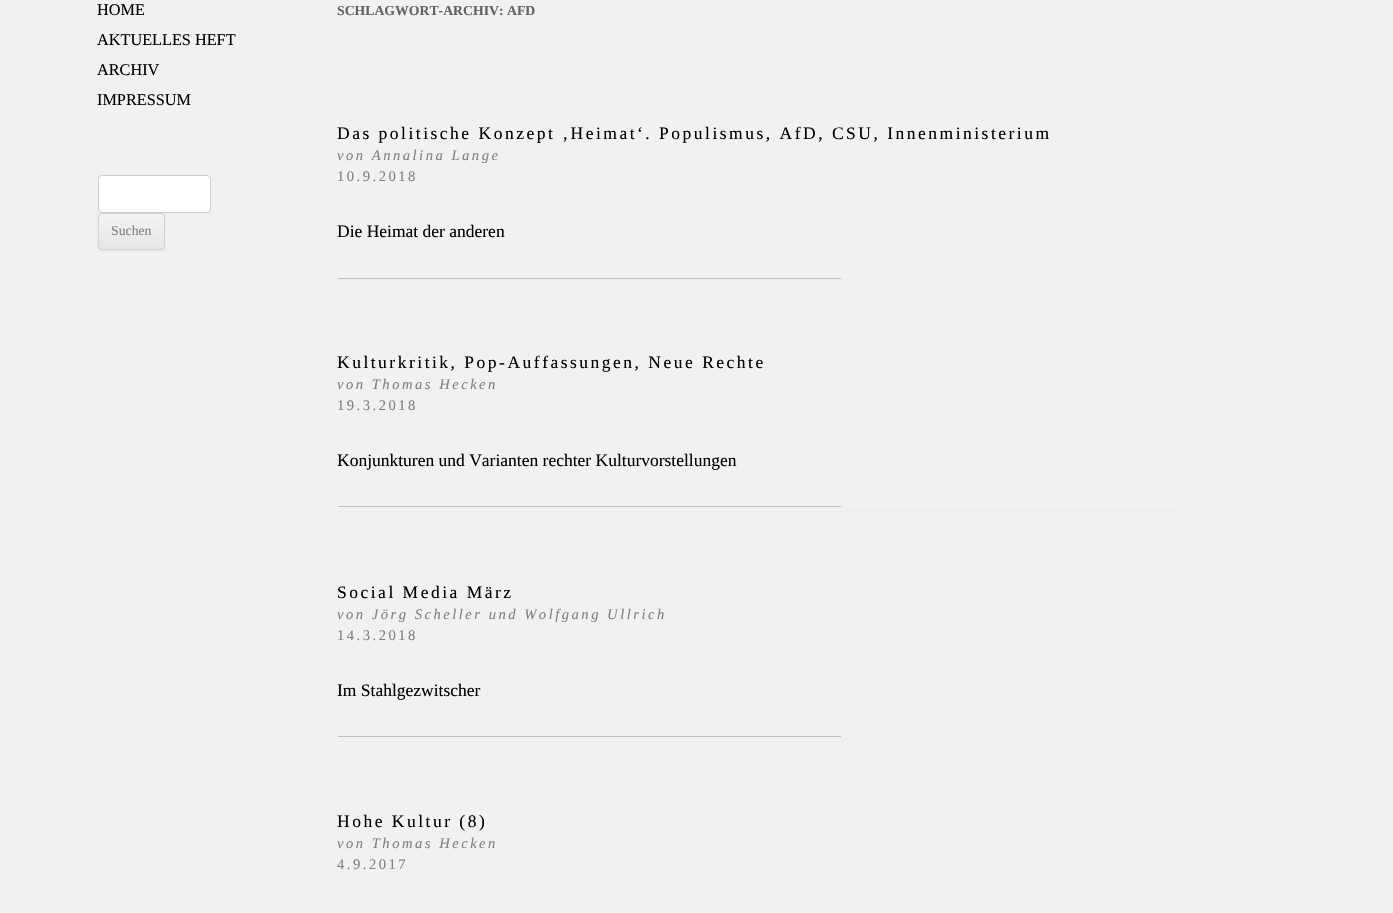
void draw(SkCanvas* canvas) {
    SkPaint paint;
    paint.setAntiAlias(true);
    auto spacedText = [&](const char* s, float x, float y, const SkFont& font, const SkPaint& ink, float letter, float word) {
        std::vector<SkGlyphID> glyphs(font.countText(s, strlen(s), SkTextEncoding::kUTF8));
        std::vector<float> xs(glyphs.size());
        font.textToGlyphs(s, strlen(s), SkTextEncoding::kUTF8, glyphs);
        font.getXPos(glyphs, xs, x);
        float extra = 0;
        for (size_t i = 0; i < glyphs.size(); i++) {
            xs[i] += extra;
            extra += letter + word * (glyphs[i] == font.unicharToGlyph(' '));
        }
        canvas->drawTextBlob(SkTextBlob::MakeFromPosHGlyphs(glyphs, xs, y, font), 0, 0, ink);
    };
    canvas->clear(0xFFF1F0F2);
    SkFont font1(fontMgr->matchFamilyStyle("Liberation Serif", SkFontStyle::Normal()), 16.25f);
    font1.setSubpixel(true);
    paint.setColor(0xFF000000);
    canvas->drawString("HOME", 97, 15, font1, paint);
    canvas->drawString("AKTUELLES HEFT", 97, 45, font1, paint);
    canvas->drawString("ARCHIV", 97, 75, font1, paint);
    canvas->drawString("IMPRESSUM", 97, 105, font1, paint);
    paint.setColor(0xFFFFFFFF);
    canvas->drawRoundRect(SkRect::MakeXYWH(98.5f, 175.5f, 112, 37), 3.5f, 3.5f, paint);
    paint.setStyle(SkPaint::kStroke_Style);
    paint.setStrokeWidth(1);
    paint.setColor(0xFFCCCCCC);
    canvas->drawRoundRect(SkRect::MakeXYWH(98.5f, 175.5f, 112, 37), 3.5f, 3.5f, paint);
    paint.setStyle(SkPaint::kFill_Style);
    paint.setColor(0x1A404040);
    paint.setMaskFilter(SkMaskFilter::MakeBlur(kNormal_SkBlurStyle, 1));
    canvas->drawRoundRect(SkRect::MakeXYWH(98, 214, 67, 37), 4, 4, paint);
    paint.setMaskFilter(nullptr);
    canvas->save();
    canvas->clipPath(SkPathBuilder().moveTo(102, 213).lineTo(161, 213).cubicTo(163, 213, 165, 215, 165, 217).lineTo(165, 246).cubicTo(165, 248, 163, 250, 161, 250).lineTo(102, 250).cubicTo(100, 250, 98, 248, 98, 246).lineTo(98, 217).cubicTo(98, 215, 100, 213, 102, 213).close().detach(), true);
    {
        const SkColor colors[] = {0xFFF4F4F4, 0xFFE6E6E6};
        const float stops[] = {0, 1};
        const SkPoint ends[] = {{131, 214}, {131, 249}};
        paint.setShader(SkGradientShader::MakeLinear(ends, colors, stops, 2, SkTileMode::kClamp));
        paint.setAlpha(255);
    }
    canvas->drawRect(SkRect::MakeXYWH(98, 214, 67, 35), paint);
    canvas->restore();
    paint.setStyle(SkPaint::kStroke_Style);
    paint.setShader(nullptr);
    paint.setColor(0xFFD2D2D2);
    canvas->drawRoundRect(SkRect::MakeXYWH(98.5f, 213.5f, 66, 36), 3.5f, 3.5f, paint);
    SkFont font2(fontMgr->matchFamilyStyle("Liberation Serif", SkFontStyle::Normal()), 13.75f);
    font2.setSubpixel(true);
    paint.setStyle(SkPaint::kFill_Style);
    paint.setColor(0xFF808080);
    canvas->drawString("Suchen", 111, 235, font2, paint);
    paint.setColor(0xFFEDEDED);
    canvas->drawRect(SkRect::MakeXYWH(338, 53, 840, 1), paint);
    SkFont font3(fontMgr->matchFamilyStyle("Liberation Serif", SkFontStyle::Bold()), 13.75f);
    font3.setSubpixel(true);
    paint.setColor(0xFF636363);
    canvas->drawString("SCHLAGWORT-ARCHIV: AFD", 337, 15, font3, paint);
    paint.setColor(0xFFEDEDED);
    canvas->drawRect(SkRect::MakeXYWH(338, 279, 840, 1), paint);
    canvas->drawRect(SkRect::MakeXYWH(338, 283, 840, 1), paint);
    SkFont font4(fontMgr->matchFamilyStyle("Liberation Serif", SkFontStyle::Normal()), 17.5f);
    font4.setSubpixel(true);
    paint.setColor(0xFF000000);
    spacedText("Das politische Konzept ‚Heimat‘. Populismus, AfD, CSU, Innenministerium", 337, 139, font4, paint, 2.5f, 0);
    SkFont font5(fontMgr->matchFamilyStyle("Liberation Serif", SkFontStyle::Italic()), 14.6f);
    font5.setSubpixel(true);
    paint.setColor(0xFF808080);
    spacedText("von Annalina Lange", 337, 160, font5, paint, 2.5f, 0);
    SkFont font6(fontMgr->matchFamilyStyle("Liberation Serif", SkFontStyle::Normal()), 14.6f);
    font6.setSubpixel(true);
    spacedText("10.9.2018", 337, 181, font6, paint, 2.5f, 0);
    paint.setColor(0xFF000000);
    canvas->drawString("Die Heimat der anderen", 337, 237, font4, paint);
    paint.setColor(0xFFC0C0C0);
    canvas->drawRect(SkRect::MakeXYWH(338, 278, 503, 1), paint);
    paint.setColor(0xFFEDEDED);
    canvas->drawRect(SkRect::MakeXYWH(338, 508, 840, 1), paint);
    canvas->drawRect(SkRect::MakeXYWH(338, 511, 840, 1), paint);
    paint.setColor(0xFF000000);
    spacedText("Kulturkritik, Pop-Auffassungen, Neue Rechte", 337, 368, font4, paint, 2.5f, 0);
    paint.setColor(0xFF808080);
    spacedText("von Thomas Hecken", 337, 389, font5, paint, 2.5f, 0);
    spacedText("19.3.2018", 337, 410, font6, paint, 2.5f, 0);
    paint.setColor(0xFF000000);
    canvas->drawString("Konjunkturen und Varianten rechter Kulturvorstellungen", 337, 466, font4, paint);
    paint.setColor(0xFFC0C0C0);
    canvas->drawRect(SkRect::MakeXYWH(338, 506, 503, 1), paint);
    paint.setColor(0xFFEDEDED);
    canvas->drawRect(SkRect::MakeXYWH(338, 738, 840, 1), paint);
    canvas->drawRect(SkRect::MakeXYWH(338, 741, 840, 1), paint);
    paint.setColor(0xFF000000);
    spacedText("Social Media März", 337, 598, font4, paint, 2.5f, 0);
    paint.setColor(0xFF808080);
    spacedText("von Jörg Scheller und Wolfgang Ullrich", 337, 619, font5, paint, 2.5f, 0);
    spacedText("14.3.2018", 337, 640, font6, paint, 2.5f, 0);
    paint.setColor(0xFF000000);
    canvas->drawString("Im Stahlgezwitscher", 337, 696, font4, paint);
    paint.setColor(0xFFC0C0C0);
    canvas->drawRect(SkRect::MakeXYWH(338, 736, 503, 1), paint);
    paint.setColor(0xFF000000);
    spacedText("Hohe Kultur (8)", 337, 827, font4, paint, 2.5f, 0);
    paint.setColor(0xFF808080);
    spacedText("von Thomas Hecken", 337, 848, font5, paint, 2.5f, 0);
    spacedText("4.9.2017", 337, 869, font6, paint, 2.5f, 0);
}
